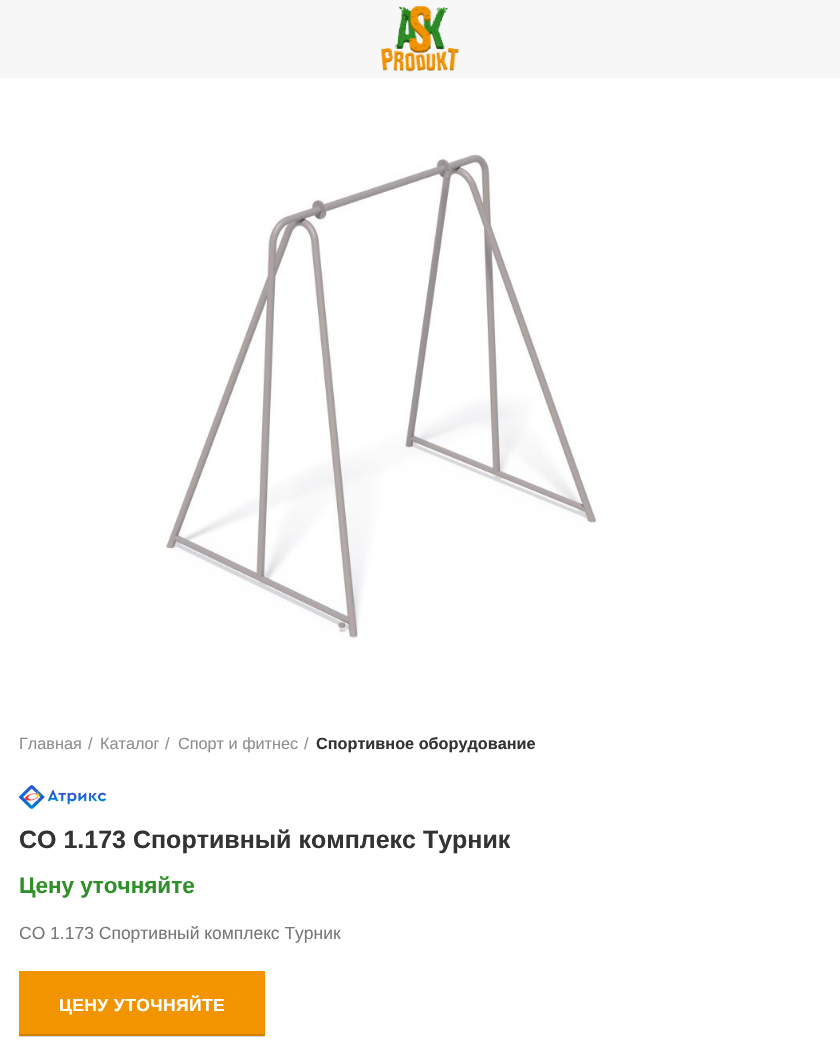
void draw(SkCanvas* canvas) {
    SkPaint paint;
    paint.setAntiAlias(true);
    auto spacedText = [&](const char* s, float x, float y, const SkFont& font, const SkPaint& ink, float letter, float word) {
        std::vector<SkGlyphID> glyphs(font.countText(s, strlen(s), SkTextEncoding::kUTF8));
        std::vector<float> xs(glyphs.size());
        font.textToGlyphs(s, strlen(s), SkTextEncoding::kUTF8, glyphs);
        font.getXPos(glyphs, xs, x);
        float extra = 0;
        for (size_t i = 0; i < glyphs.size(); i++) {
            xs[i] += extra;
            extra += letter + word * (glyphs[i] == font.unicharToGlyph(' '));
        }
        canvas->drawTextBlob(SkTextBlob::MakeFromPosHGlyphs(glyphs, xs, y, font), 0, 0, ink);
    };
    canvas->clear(0xFFFFFFFF);
    paint.setColor(0xFFD9D9D9);
    canvas->drawRect(SkRect::MakeXYWH(19, 1036, 246, 1), paint);
    paint.setColor(0xFFF7F7F7);
    canvas->drawRect(SkRect::MakeXYWH(0, 0, 840, 78), paint);
    canvas->drawImageRect(SkImages::DeferredFromEncodedData(SkData::MakeFromFileName("img1.png")), SkRect::MakeXYWH(381, 6, 78, 66), SkSamplingOptions());
    canvas->drawImageRect(SkImages::DeferredFromEncodedData(SkData::MakeFromFileName("img2.png")), SkRect::MakeXYWH(162, 154, 437, 485), SkSamplingOptions());
    SkFont font1(fontMgr->matchFamilyStyle("Liberation Sans", SkFontStyle::Normal()), 16.25f);
    font1.setSubpixel(true);
    paint.setColor(0xFF8E8E8E);
    canvas->drawString("Главная", 19, 749, font1, paint);
    canvas->drawString("/", 88, 749, font1, paint);
    canvas->drawString("Каталог", 100, 749, font1, paint);
    canvas->drawString("/", 165, 749, font1, paint);
    canvas->drawString("Спорт и фитнес", 178, 749, font1, paint);
    canvas->drawString("/", 304, 749, font1, paint);
    SkFont font2(fontMgr->matchFamilyStyle("Liberation Sans", SkFontStyle::Bold()), 16.25f);
    font2.setSubpixel(true);
    paint.setColor(0xFF333333);
    canvas->drawString("Спортивное оборудование", 316, 749, font2, paint);
    canvas->drawImageRect(SkImages::DeferredFromEncodedData(SkData::MakeFromFileName("img3.png")), SkRect::MakeXYWH(18, 785, 89, 24), SkSamplingOptions());
    SkFont font3(fontMgr->matchFamilyStyle("Liberation Sans", SkFontStyle::Bold()), 25);
    font3.setSubpixel(true);
    canvas->drawString("СО 1.173 Спортивный комплекс Турник", 19, 848, font3, paint);
    SkFont font4(fontMgr->matchFamilyStyle("Liberation Sans", SkFontStyle::Bold()), 22.5f);
    font4.setSubpixel(true);
    paint.setColor(0xFF2F8F28);
    canvas->drawString("Цену уточняйте", 19, 893, font4, paint);
    SkFont font5(fontMgr->matchFamilyStyle("Liberation Sans", SkFontStyle::Normal()), 17.5f);
    font5.setSubpixel(true);
    paint.setColor(0xFF777777);
    canvas->drawString("СО 1.173 Спортивный комплекс Турник", 19, 939, font5, paint);
    paint.setColor(0xFFF29400);
    canvas->drawRect(SkRect::MakeXYWH(19, 971, 246, 63), paint);
    paint.setColor(0xFFCE7E00);
    canvas->drawRect(SkRect::MakeXYWH(19, 1034, 246, 2), paint);
    SkFont font6(fontMgr->matchFamilyStyle("Liberation Sans", SkFontStyle::Bold()), 17.5f);
    font6.setSubpixel(true);
    paint.setColor(0xFFFFFFFF);
    spacedText("ЦЕНУ УТОЧНЯЙТЕ", 59, 1011, font6, paint, 0.4f, 0);
}
